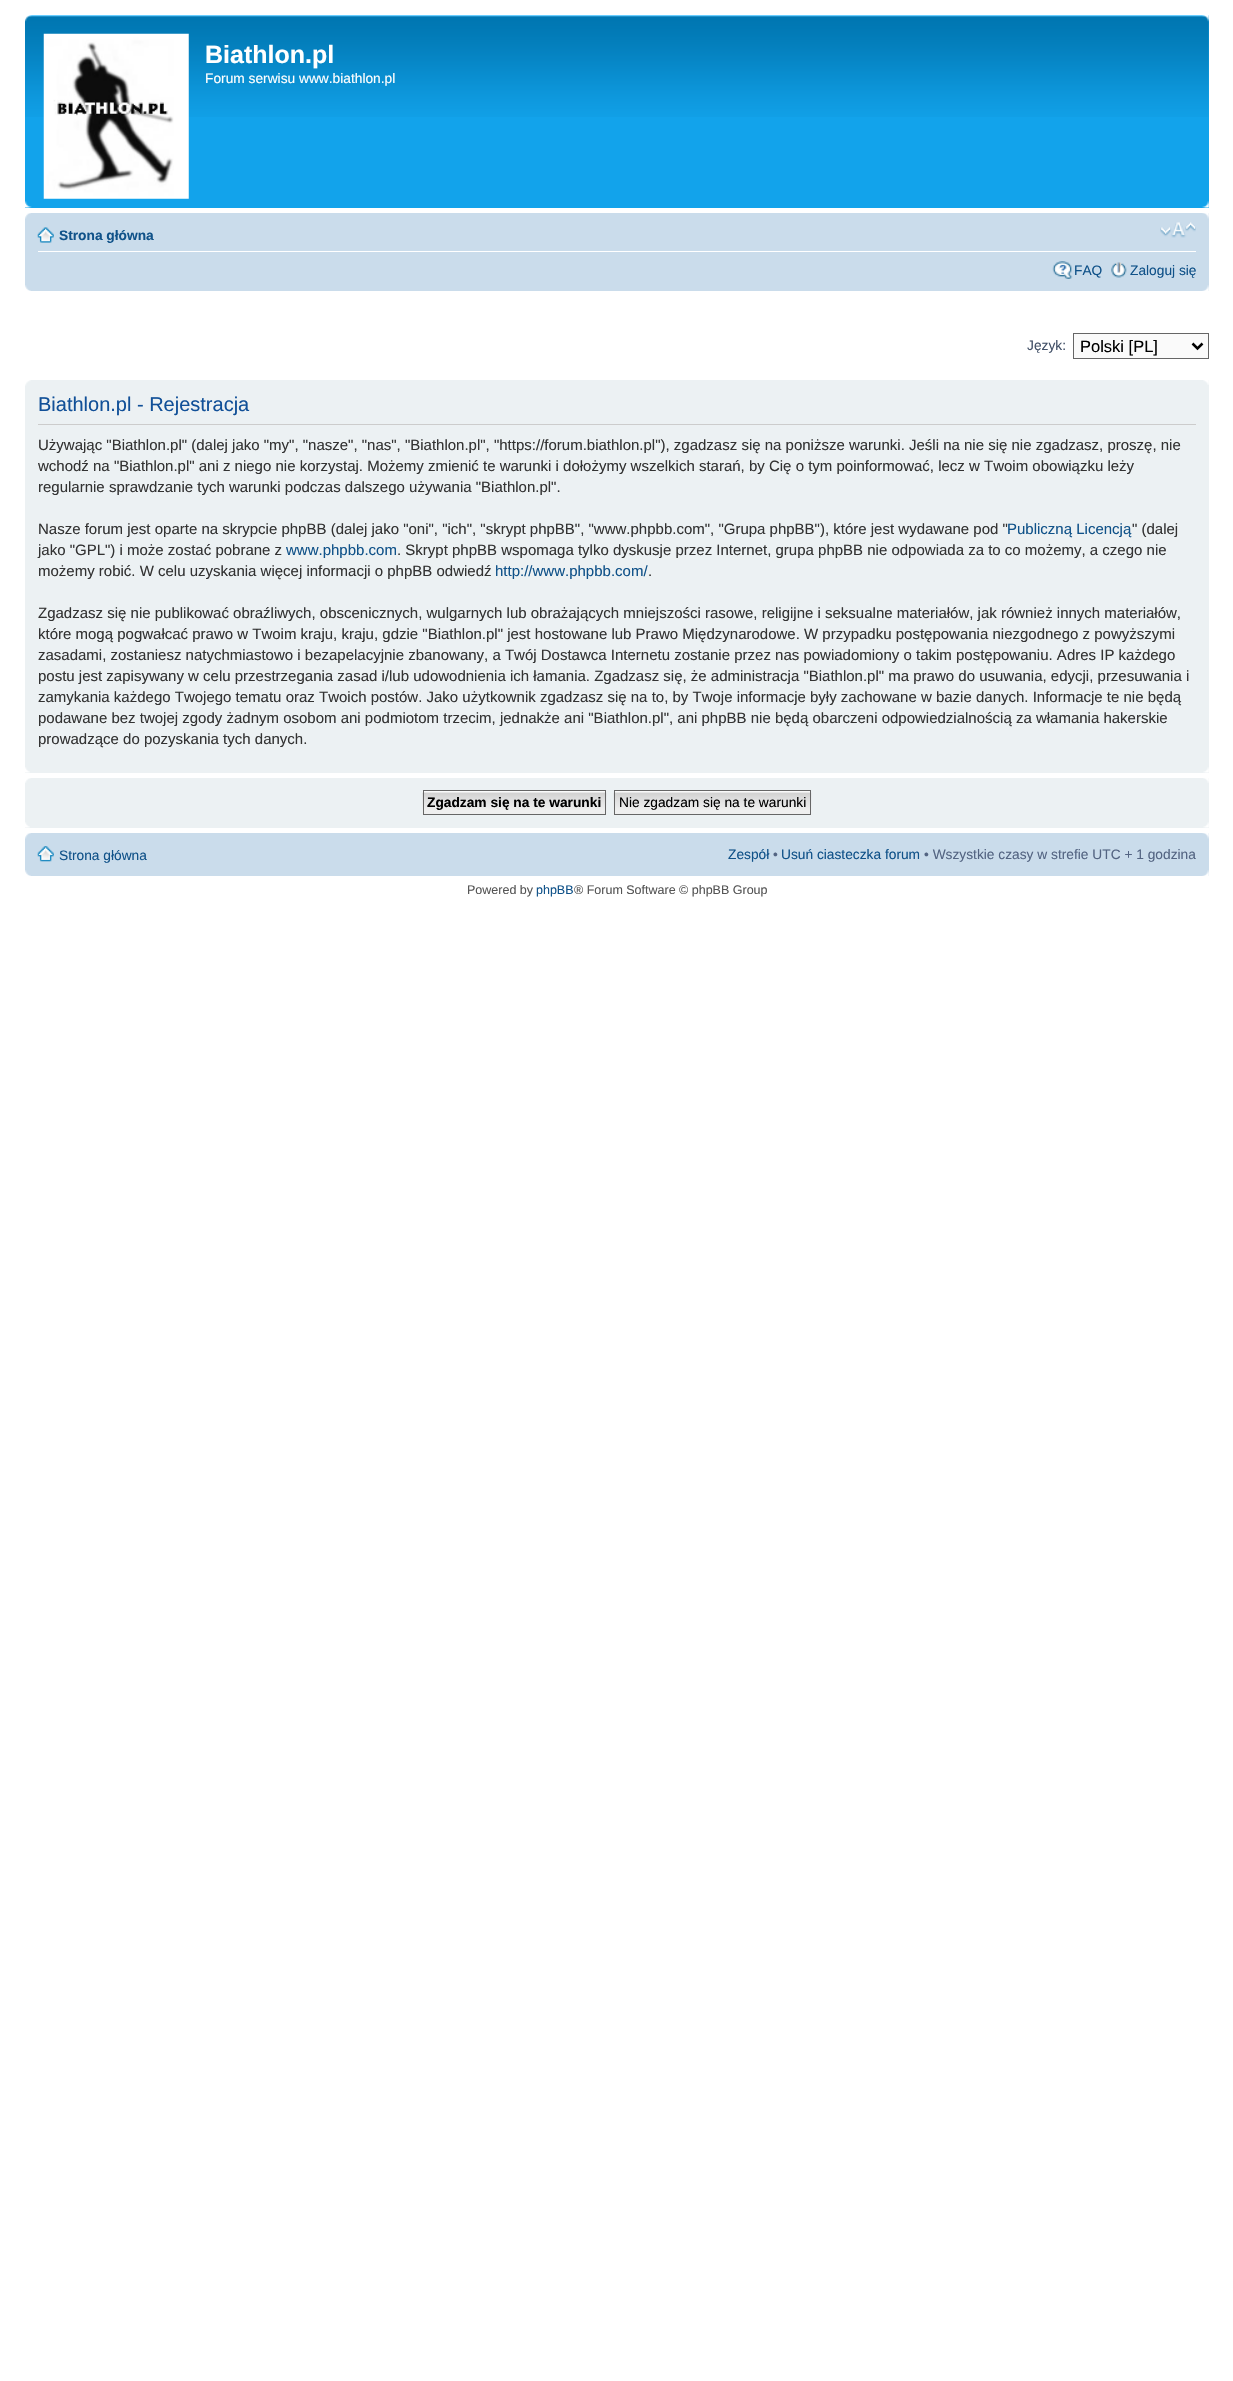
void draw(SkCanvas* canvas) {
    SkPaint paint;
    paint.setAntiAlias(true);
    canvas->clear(0xFFFFFFFF);
    paint.setColor(0xFF12A3EB);
    canvas->drawRect(SkRect::MakeXYWH(25, 15, 1184, 193), paint);
    canvas->drawImageRect(SkImages::DeferredFromEncodedData(SkData::MakeFromFileName("img1.png")), SkRect::MakeXYWH(25, 15, 1184, 102), SkSamplingOptions());
    canvas->drawImageRect(SkImages::DeferredFromEncodedData(SkData::MakeFromFileName("img2.png")), SkRect::MakeXYWH(25, 15, 7, 7), SkSamplingOptions());
    canvas->drawImageRect(SkImages::DeferredFromEncodedData(SkData::MakeFromFileName("img3.png")), SkRect::MakeXYWH(1202, 15, 7, 7), SkSamplingOptions());
    canvas->drawImageRect(SkImages::DeferredFromEncodedData(SkData::MakeFromFileName("img4.png")), SkRect::MakeXYWH(43, 33, 146, 166), SkSamplingOptions());
    SkFont font1(fontMgr->matchFamilyStyle("Liberation Sans", SkFontStyle::Bold()), 25);
    font1.setSubpixel(true);
    paint.setColor(0xFFFFFFFF);
    canvas->drawString("Biathlon.pl", 205, 63, font1, paint);
    SkFont font2(fontMgr->matchFamilyStyle("Liberation Sans", SkFontStyle::Normal()), 13.75f);
    font2.setSubpixel(true);
    canvas->drawString("Forum serwisu www.biathlon.pl", 205, 83, font2, paint);
    canvas->drawImageRect(SkImages::DeferredFromEncodedData(SkData::MakeFromFileName("img5.png")), SkRect::MakeXYWH(25, 201, 7, 7), SkSamplingOptions());
    canvas->drawImageRect(SkImages::DeferredFromEncodedData(SkData::MakeFromFileName("img6.png")), SkRect::MakeXYWH(1202, 201, 7, 7), SkSamplingOptions());
    paint.setColor(0xFFCADCEB);
    canvas->drawRect(SkRect::MakeXYWH(25, 213, 1184, 78), paint);
    canvas->drawImageRect(SkImages::DeferredFromEncodedData(SkData::MakeFromFileName("img7.png")), SkRect::MakeXYWH(25, 213, 6, 6), SkSamplingOptions());
    canvas->drawImageRect(SkImages::DeferredFromEncodedData(SkData::MakeFromFileName("img8.png")), SkRect::MakeXYWH(1202, 213, 7, 6), SkSamplingOptions());
    paint.setColor(0xFFFFFFFF);
    canvas->drawRect(SkRect::MakeXYWH(38, 251, 1158, 1), paint);
    canvas->drawImageRect(SkImages::DeferredFromEncodedData(SkData::MakeFromFileName("img9.png")), SkRect::MakeXYWH(37, 227, 17, 16), SkSamplingOptions());
    SkFont font3(fontMgr->matchFamilyStyle("Liberation Sans", SkFontStyle::Bold()), 13.75f);
    font3.setSubpixel(true);
    paint.setColor(0xFF105289);
    canvas->drawString("Strona główna", 59, 240, font3, paint);
    canvas->drawImageRect(SkImages::DeferredFromEncodedData(SkData::MakeFromFileName("img10.png")), SkRect::MakeXYWH(1160, 222, 36, 16), SkSamplingOptions());
    canvas->drawImageRect(SkImages::DeferredFromEncodedData(SkData::MakeFromFileName("img11.png")), SkRect::MakeXYWH(1052, 261, 21, 18), SkSamplingOptions());
    canvas->drawString("FAQ", 1074, 275, font2, paint);
    canvas->drawImageRect(SkImages::DeferredFromEncodedData(SkData::MakeFromFileName("img12.png")), SkRect::MakeXYWH(1111, 262, 16, 16), SkSamplingOptions());
    canvas->drawString("Zaloguj się", 1130, 275, font2, paint);
    canvas->drawImageRect(SkImages::DeferredFromEncodedData(SkData::MakeFromFileName("img13.png")), SkRect::MakeXYWH(25, 285, 6, 6), SkSamplingOptions());
    canvas->drawImageRect(SkImages::DeferredFromEncodedData(SkData::MakeFromFileName("img14.png")), SkRect::MakeXYWH(1202, 285, 7, 6), SkSamplingOptions());
    paint.setColor(0xFF425067);
    canvas->drawString("Język:", 1027, 350, font2, paint);
    paint.setColor(0xFFFAFAFA);
    canvas->drawRect(SkRect::MakeXYWH(1073.5f, 333.5f, 135, 25), paint);
    paint.setStyle(SkPaint::kStroke_Style);
    paint.setStrokeWidth(1);
    paint.setColor(0xFF666666);
    canvas->drawRect(SkRect::MakeXYWH(1073.5f, 333.5f, 135, 25), paint);
    paint.setStrokeWidth(2.5f);
    paint.setColor(0xFF000000);
    canvas->drawPath(SkPathBuilder().moveTo(1192.5f, 343.5f).lineTo(1197.5f, 348.5f).lineTo(1202.5f, 343.5f).detach(), paint);
    SkFont font4(fontMgr->matchFamilyStyle("Liberation Sans", SkFontStyle::Normal()), 16.5f);
    font4.setSubpixel(true);
    paint.setStyle(SkPaint::kFill_Style);
    canvas->drawString("Polski [PL]", 1080, 352, font4, paint);
    paint.setColor(0xFFECF1F3);
    canvas->drawRect(SkRect::MakeXYWH(25, 380, 1184, 393), paint);
    canvas->drawImageRect(SkImages::DeferredFromEncodedData(SkData::MakeFromFileName("img15.png")), SkRect::MakeXYWH(25, 380, 6, 6), SkSamplingOptions());
    canvas->drawImageRect(SkImages::DeferredFromEncodedData(SkData::MakeFromFileName("img16.png")), SkRect::MakeXYWH(1203, 380, 6, 5), SkSamplingOptions());
    paint.setColor(0xFFCCCCCC);
    canvas->drawRect(SkRect::MakeXYWH(38, 424, 1158, 1), paint);
    SkFont font5(fontMgr->matchFamilyStyle("Liberation Sans", SkFontStyle::Normal()), 20);
    font5.setSubpixel(true);
    paint.setColor(0xFF115098);
    canvas->drawString("Biathlon.pl - Rejestracja", 38, 411, font5, paint);
    SkFont font6(fontMgr->matchFamilyStyle("Liberation Sans", SkFontStyle::Normal()), 15);
    font6.setSubpixel(true);
    paint.setColor(0xFF333333);
    canvas->drawString("Używając \"Biathlon.pl\" (dalej jako \"my\", \"nasze\", \"nas\", \"Biathlon.pl\", \"https://forum.biathlon.pl\"), zgadzasz się na poniższe warunki. Jeśli na nie się nie zgadzasz, proszę, nie", 38, 450, font6, paint);
    canvas->drawString("wchodź na \"Biathlon.pl\" ani z niego nie korzystaj. Możemy zmienić te warunki i dołożymy wszelkich starań, by Cię o tym poinformować, lecz w Twoim obowiązku leży", 38, 471, font6, paint);
    canvas->drawString("regularnie sprawdzanie tych warunki podczas dalszego używania \"Biathlon.pl\".", 38, 492, font6, paint);
    canvas->drawString("Nasze forum jest oparte na skrypcie phpBB (dalej jako \"oni\", \"ich\", \"skrypt phpBB\", \"www.phpbb.com\", \"Grupa phpBB\"), które jest wydawane pod \"", 38, 534, font6, paint);
    paint.setColor(0xFF105289);
    canvas->drawString("Publiczną Licencją", 1007, 534, font6, paint);
    paint.setColor(0xFF333333);
    canvas->drawString("\" (dalej", 1132, 534, font6, paint);
    canvas->drawString("jako \"GPL\") i może zostać pobrane z", 38, 555, font6, paint);
    paint.setColor(0xFF105289);
    canvas->drawString("www.phpbb.com", 286, 555, font6, paint);
    paint.setColor(0xFF333333);
    canvas->drawString(". Skrypt phpBB wspomaga tylko dyskusje przez Internet, grupa phpBB nie odpowiada za to co możemy, a czego nie", 397, 555, font6, paint);
    canvas->drawString("możemy robić. W celu uzyskania więcej informacji o phpBB odwiedź", 38, 576, font6, paint);
    paint.setColor(0xFF105289);
    canvas->drawString("http://www.phpbb.com/", 495, 576, font6, paint);
    paint.setColor(0xFF333333);
    canvas->drawString(".", 648, 576, font6, paint);
    canvas->drawString("Zgadzasz się nie publikować obraźliwych, obscenicznych, wulgarnych lub obrażających mniejszości rasowe, religijne i seksualne materiałów, jak również innych materiałów,", 38, 618, font6, paint);
    canvas->drawString("które mogą pogwałcać prawo w Twoim kraju, kraju, gdzie \"Biathlon.pl\" jest hostowane lub Prawo Międzynarodowe. W przypadku postępowania niezgodnego z powyższymi", 38, 639, font6, paint);
    canvas->drawString("zasadami, zostaniesz natychmiastowo i bezapelacyjnie zbanowany, a Twój Dostawca Internetu zostanie przez nas powiadomiony o takim postępowaniu. Adres IP każdego", 38, 660, font6, paint);
    canvas->drawString("postu jest zapisywany w celu przestrzegania zasad i/lub udowodnienia ich łamania. Zgadzasz się, że administracja \"Biathlon.pl\" ma prawo do usuwania, edycji, przesuwania i", 38, 681, font6, paint);
    canvas->drawString("zamykania każdego Twojego tematu oraz Twoich postów. Jako użytkownik zgadzasz się na to, by Twoje informacje były zachowane w bazie danych. Informacje te nie będą", 38, 702, font6, paint);
    canvas->drawString("podawane bez twojej zgody żadnym osobom ani podmiotom trzecim, jednakże ani \"Biathlon.pl\", ani phpBB nie będą obarczeni odpowiedzialnością za włamania hakerskie", 38, 723, font6, paint);
    canvas->drawString("prowadzące do pozyskania tych danych.", 38, 744, font6, paint);
    canvas->drawImageRect(SkImages::DeferredFromEncodedData(SkData::MakeFromFileName("img17.png")), SkRect::MakeXYWH(25, 767, 5, 6), SkSamplingOptions());
    canvas->drawImageRect(SkImages::DeferredFromEncodedData(SkData::MakeFromFileName("img18.png")), SkRect::MakeXYWH(1203, 767, 6, 6), SkSamplingOptions());
    paint.setColor(0xFFECF1F3);
    canvas->drawRect(SkRect::MakeXYWH(25, 778, 1184, 50), paint);
    canvas->drawImageRect(SkImages::DeferredFromEncodedData(SkData::MakeFromFileName("img19.png")), SkRect::MakeXYWH(25, 778, 6, 5), SkSamplingOptions());
    canvas->drawImageRect(SkImages::DeferredFromEncodedData(SkData::MakeFromFileName("img20.png")), SkRect::MakeXYWH(1203, 778, 6, 5), SkSamplingOptions());
    canvas->drawImageRect(SkImages::DeferredFromEncodedData(SkData::MakeFromFileName("img21.png")), SkRect::MakeXYWH(422, 791, 185, 24), SkSamplingOptions());
    paint.setStyle(SkPaint::kStroke_Style);
    paint.setStrokeWidth(1);
    paint.setColor(0xFF666666);
    canvas->drawRect(SkRect::MakeXYWH(423.5f, 790.5f, 182, 24), paint);
    paint.setStyle(SkPaint::kFill_Style);
    paint.setColor(0xFF000000);
    canvas->drawString("Zgadzam się na te warunki", 427, 807, font3, paint);
    paint.setColor(0xFFFAFAFA);
    canvas->drawRect(SkRect::MakeXYWH(615, 791, 195, 1), paint);
    canvas->drawImageRect(SkImages::DeferredFromEncodedData(SkData::MakeFromFileName("img22.png")), SkRect::MakeXYWH(613, 792, 199, 23), SkSamplingOptions());
    paint.setStyle(SkPaint::kStroke_Style);
    paint.setColor(0xFF666666);
    canvas->drawRect(SkRect::MakeXYWH(614.5f, 790.5f, 196, 24), paint);
    paint.setStyle(SkPaint::kFill_Style);
    paint.setColor(0xFF000000);
    canvas->drawString("Nie zgadzam się na te warunki", 619, 807, font2, paint);
    canvas->drawImageRect(SkImages::DeferredFromEncodedData(SkData::MakeFromFileName("img17.png")), SkRect::MakeXYWH(25, 822, 5, 6), SkSamplingOptions());
    canvas->drawImageRect(SkImages::DeferredFromEncodedData(SkData::MakeFromFileName("img18.png")), SkRect::MakeXYWH(1203, 822, 6, 6), SkSamplingOptions());
    paint.setColor(0xFFCADCEB);
    canvas->drawRect(SkRect::MakeXYWH(25, 833, 1184, 43), paint);
    canvas->drawImageRect(SkImages::DeferredFromEncodedData(SkData::MakeFromFileName("img7.png")), SkRect::MakeXYWH(25, 833, 6, 6), SkSamplingOptions());
    canvas->drawImageRect(SkImages::DeferredFromEncodedData(SkData::MakeFromFileName("img8.png")), SkRect::MakeXYWH(1202, 833, 7, 6), SkSamplingOptions());
    canvas->drawImageRect(SkImages::DeferredFromEncodedData(SkData::MakeFromFileName("img23.png")), SkRect::MakeXYWH(37, 846, 17, 16), SkSamplingOptions());
    paint.setColor(0xFF105289);
    canvas->drawString("Strona główna", 59, 860, font2, paint);
    canvas->drawString("Zespół", 728, 859, font2, paint);
    paint.setColor(0xFF536482);
    canvas->drawString("•", 773, 859, font2, paint);
    paint.setColor(0xFF105289);
    canvas->drawString("Usuń ciasteczka forum", 781, 859, font2, paint);
    paint.setColor(0xFF536482);
    canvas->drawString("• Wszystkie czasy w strefie UTC + 1 godzina", 924, 859, font2, paint);
    canvas->drawImageRect(SkImages::DeferredFromEncodedData(SkData::MakeFromFileName("img13.png")), SkRect::MakeXYWH(25, 870, 6, 6), SkSamplingOptions());
    canvas->drawImageRect(SkImages::DeferredFromEncodedData(SkData::MakeFromFileName("img14.png")), SkRect::MakeXYWH(1202, 870, 7, 6), SkSamplingOptions());
    SkFont font7(fontMgr->matchFamilyStyle("Liberation Sans", SkFontStyle::Normal()), 12.5f);
    font7.setSubpixel(true);
    paint.setColor(0xFF555555);
    canvas->drawString("Powered by", 467, 894, font7, paint);
    paint.setColor(0xFF105289);
    canvas->drawString("phpBB", 536, 894, font7, paint);
    paint.setColor(0xFF555555);
    canvas->drawString("® Forum Software © phpBB Group", 574, 894, font7, paint);
}
